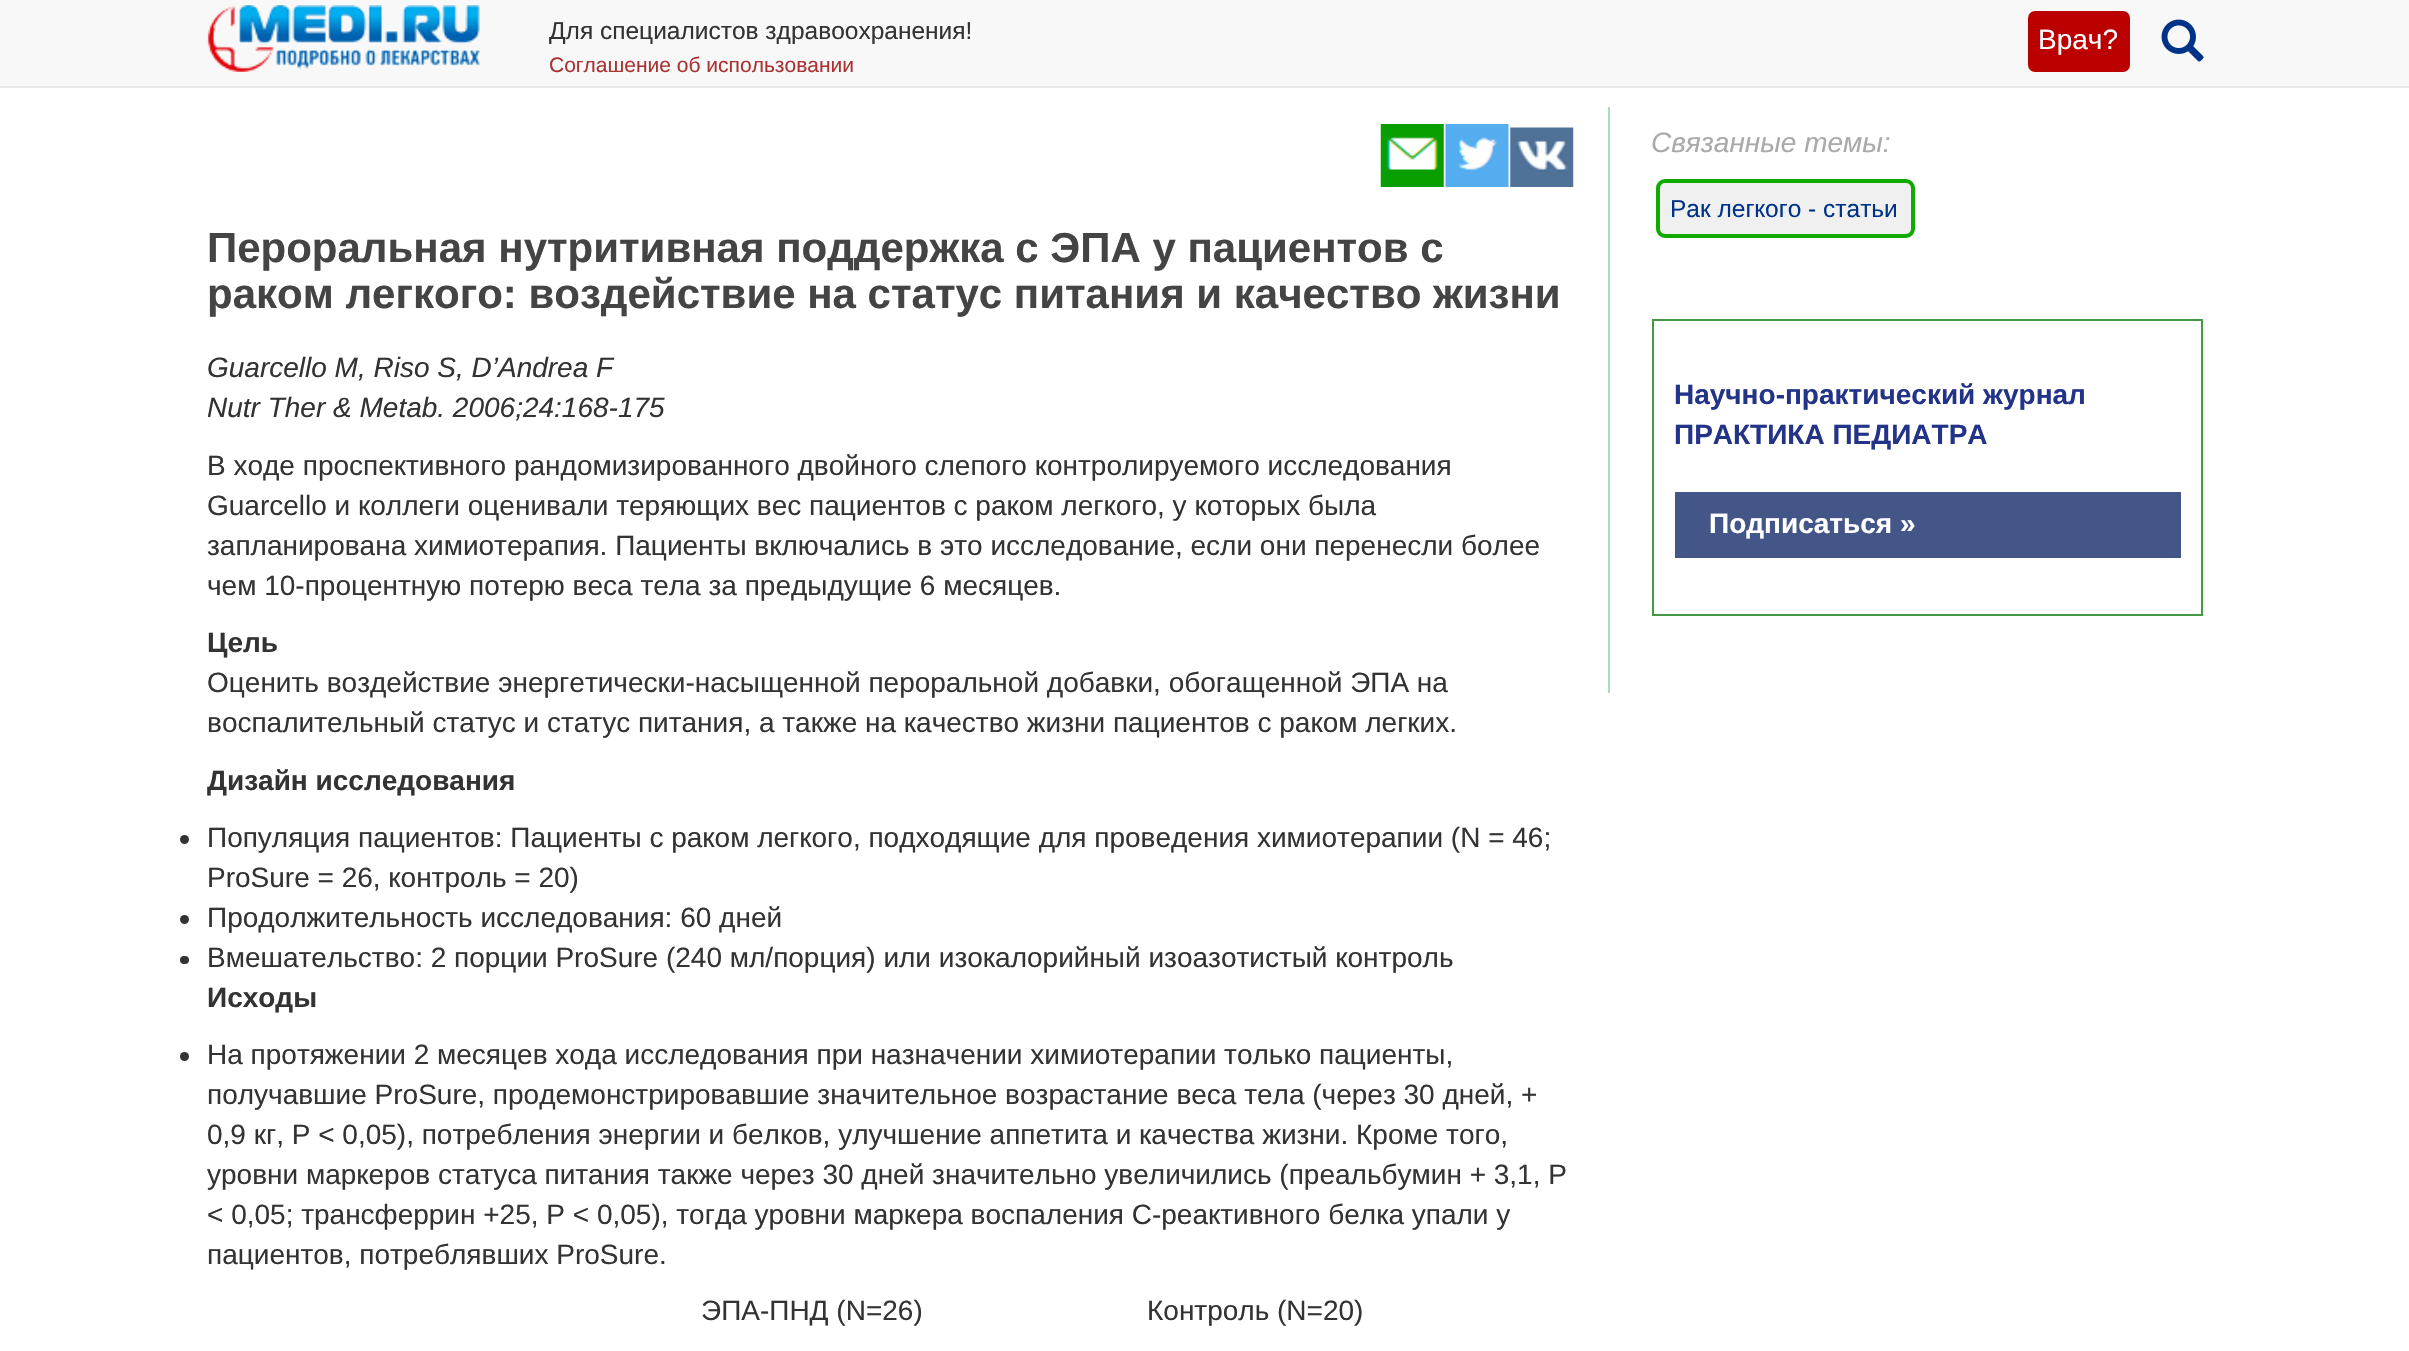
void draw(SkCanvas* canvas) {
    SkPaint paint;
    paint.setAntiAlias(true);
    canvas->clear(0xFFFFFFFF);
    paint.setColor(0xFFF8F8F8);
    canvas->drawRect(SkRect::MakeXYWH(0, 0, 2409, 86), paint);
    paint.setColor(0xFFE7E7E7);
    canvas->drawRect(SkRect::MakeXYWH(0, 86, 2409, 2), paint);
    canvas->drawImageRect(SkImages::DeferredFromEncodedData(SkData::MakeFromFileName("img1.png")), SkRect::MakeXYWH(207, 5, 273, 67), SkSamplingOptions());
    SkFont font1(fontMgr->matchFamilyStyle("Liberation Sans", SkFontStyle::Normal()), 24.5f);
    font1.setSubpixel(true);
    paint.setColor(0xFF333333);
    canvas->drawString("Для специалистов здравоохранения!", 549, 39, font1, paint);
    SkFont font2(fontMgr->matchFamilyStyle("Liberation Sans", SkFontStyle::Normal()), 21);
    font2.setSubpixel(true);
    paint.setColor(0xFFAA3333);
    canvas->drawString("Соглашение об использовании", 549, 72, font2, paint);
    paint.setColor(0xFFBB0000);
    canvas->drawRoundRect(SkRect::MakeXYWH(2028, 11, 102, 61), 7, 7, paint);
    SkFont font3(fontMgr->matchFamilyStyle("Liberation Sans", SkFontStyle::Normal()), 28);
    font3.setSubpixel(true);
    paint.setColor(0xFFFFFFFF);
    canvas->drawString("Врач?", 2038, 49, font3, paint);
    canvas->drawImageRect(SkImages::DeferredFromEncodedData(SkData::MakeFromFileName("img2.png")), SkRect::MakeXYWH(2161, 19, 43, 43), SkSamplingOptions());
    canvas->drawImageRect(SkImages::DeferredFromEncodedData(SkData::MakeFromFileName("img3.png")), SkRect::MakeXYWH(1380, 124, 64, 63), SkSamplingOptions());
    canvas->drawImageRect(SkImages::DeferredFromEncodedData(SkData::MakeFromFileName("img4.png")), SkRect::MakeXYWH(1445, 124, 64, 63), SkSamplingOptions());
    canvas->drawImageRect(SkImages::DeferredFromEncodedData(SkData::MakeFromFileName("img5.png")), SkRect::MakeXYWH(1510, 127, 64, 60), SkSamplingOptions());
    SkFont font4(fontMgr->matchFamilyStyle("Liberation Sans", SkFontStyle::Bold()), 42);
    font4.setSubpixel(true);
    paint.setColor(0xFF444444);
    canvas->drawString("Пероральная нутритивная поддержка с ЭПА у пациентов с", 207, 262, font4, paint);
    canvas->drawString("раком легкого: воздействие на статус питания и качество жизни", 207, 308, font4, paint);
    SkFont font5(fontMgr->matchFamilyStyle("Liberation Sans", SkFontStyle::Italic()), 28);
    font5.setSubpixel(true);
    paint.setColor(0xFF333333);
    canvas->drawString("Guarcello М, Riso S, D’Andrea F", 207, 377, font5, paint);
    canvas->drawString("Nutr Ther & Metab. 2006;24:168-175", 207, 417, font5, paint);
    canvas->drawString("В ходе проспективного рандомизированного двойного слепого контролируемого исследования", 207, 475, font3, paint);
    canvas->drawString("Guarcello и коллеги оценивали теряющих вес пациентов с раком легкого, у которых была", 207, 515, font3, paint);
    canvas->drawString("запланирована химиотерапия. Пациенты включались в это исследование, если они перенесли более", 207, 555, font3, paint);
    canvas->drawString("чем 10-процентную потерю веса тела за предыдущие 6 месяцев.", 207, 595, font3, paint);
    SkFont font6(fontMgr->matchFamilyStyle("Liberation Sans", SkFontStyle::Bold()), 28);
    font6.setSubpixel(true);
    canvas->drawString("Цель", 207, 652, font6, paint);
    canvas->drawString("Оценить воздействие энергетически-насыщенной пероральной добавки, обогащенной ЭПА на", 207, 692, font3, paint);
    canvas->drawString("воспалительный статус и статус питания, а также на качество жизни пациентов с раком легких.", 207, 732, font3, paint);
    canvas->drawString("Дизайн исследования", 207, 790, font6, paint);
    canvas->drawCircle(184.5f, 839.5f, 4.5f, paint);
    canvas->drawString("Популяция пациентов: Пациенты с раком легкого, подходящие для проведения химиотерапии (N = 46;", 207, 847, font3, paint);
    canvas->drawString("ProSure = 26, контроль = 20)", 207, 887, font3, paint);
    canvas->drawCircle(184.5f, 919.5f, 4.5f, paint);
    canvas->drawString("Продолжительность исследования: 60 дней", 207, 927, font3, paint);
    canvas->drawRoundRect(SkRect::MakeXYWH(180, 956, 9, 8), 4, 4, paint);
    canvas->drawString("Вмешательство: 2 порции ProSure (240 мл/порция) или изокалорийный изоазотистый контроль", 207, 967, font3, paint);
    canvas->drawString("Исходы", 207, 1007, font6, paint);
    canvas->drawCircle(184.5f, 1056.5f, 4.5f, paint);
    canvas->drawString("На протяжении 2 месяцев хода исследования при назначении химиотерапии только пациенты,", 207, 1064, font3, paint);
    canvas->drawString("получавшие ProSure, продемонстрировавшие значительное возрастание веса тела (через 30 дней, +", 207, 1104, font3, paint);
    canvas->drawString("0,9 кг, Р < 0,05), потребления энергии и белков, улучшение аппетита и качества жизни. Кроме того,", 207, 1144, font3, paint);
    canvas->drawString("уровни маркеров статуса питания также через 30 дней значительно увеличились (преальбумин + 3,1, Р", 207, 1184, font3, paint);
    canvas->drawString("< 0,05; трансферрин +25, Р < 0,05), тогда уровни маркера воспаления С-реактивного белка упали у", 207, 1224, font3, paint);
    canvas->drawString("пациентов, потреблявших ProSure.", 207, 1264, font3, paint);
    canvas->drawString("ЭПА-ПНД (N=26)", 701, 1320, font3, paint);
    canvas->drawString("Контроль (N=20)", 1147, 1320, font3, paint);
    paint.setColor(0xFFAADDBB);
    canvas->drawRect(SkRect::MakeXYWH(1608, 107, 2, 586), paint);
    paint.setColor(0xFFAAAAAA);
    canvas->drawString("Связанные темы:", 1651, 152, font5, paint);
    paint.setColor(0xFFF0F0F0);
    canvas->drawRoundRect(SkRect::MakeXYWH(1658, 181, 255, 55), 7, 7, paint);
    paint.setStyle(SkPaint::kStroke_Style);
    paint.setStrokeWidth(4);
    paint.setColor(0xFF11AA00);
    canvas->drawRoundRect(SkRect::MakeXYWH(1658, 181, 255, 55), 7, 7, paint);
    paint.setStyle(SkPaint::kFill_Style);
    paint.setColor(0xFF003388);
    canvas->drawString("Рак легкого - статьи", 1670, 217, font1, paint);
    paint.setStyle(SkPaint::kStroke_Style);
    paint.setStrokeWidth(2);
    paint.setColor(0xFF449944);
    canvas->drawRect(SkRect::MakeXYWH(1653, 320, 549, 295), paint);
    paint.setStyle(SkPaint::kFill_Style);
    paint.setColor(0xFF223388);
    canvas->drawString("Научно-практический журнал", 1674, 404, font6, paint);
    canvas->drawString("ПРАКТИКА ПЕДИАТРА", 1674, 444, font6, paint);
    paint.setColor(0xFF445588);
    canvas->drawRect(SkRect::MakeXYWH(1675, 492, 506, 66), paint);
    paint.setColor(0xFFFFFFFF);
    canvas->drawString("Подписаться »", 1709, 533, font6, paint);
}
